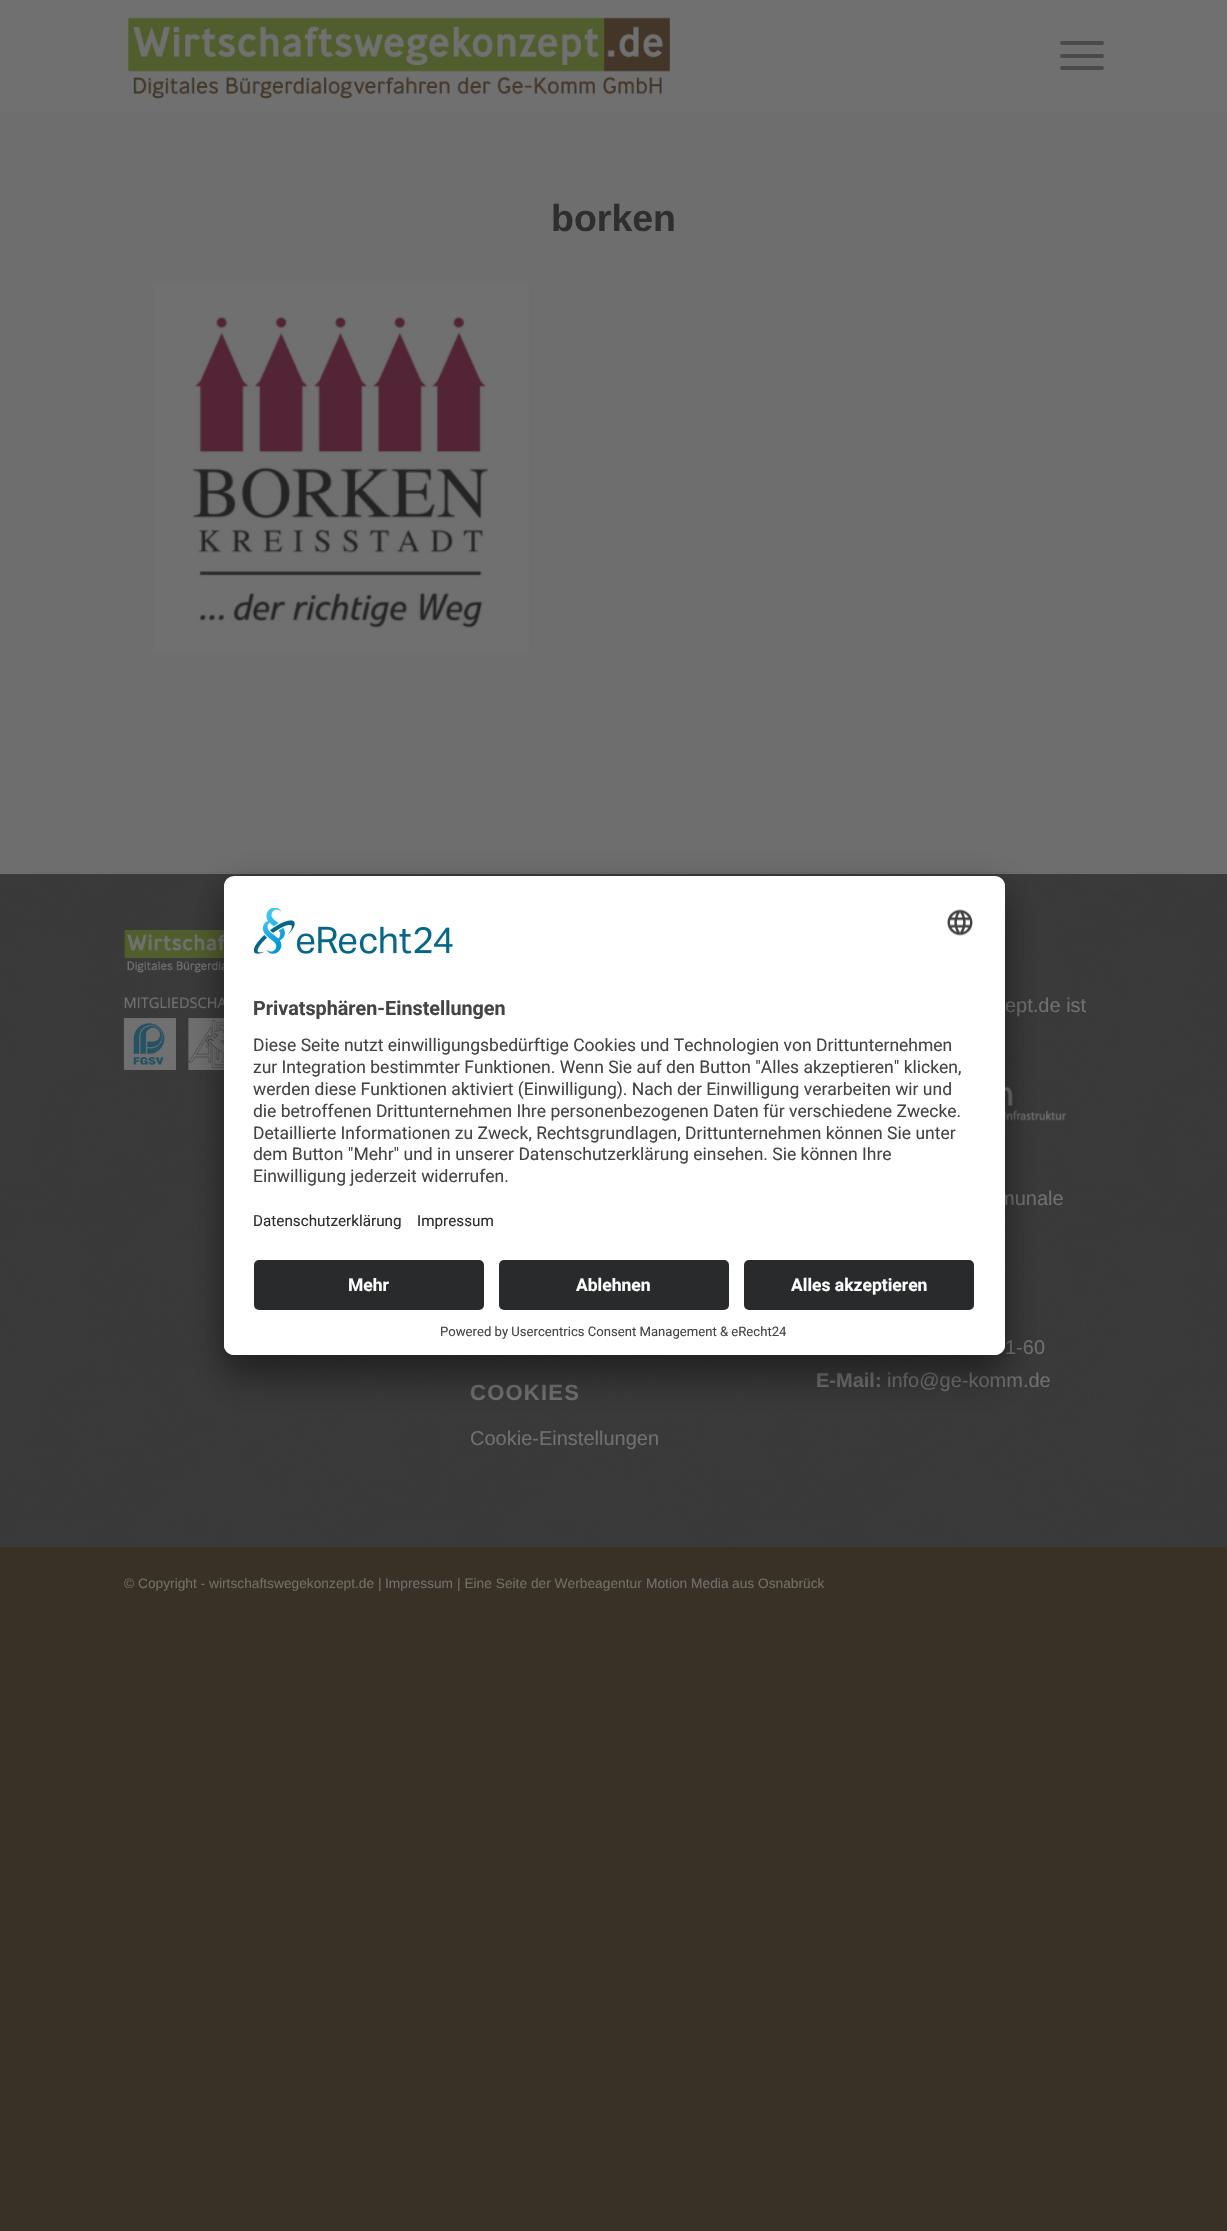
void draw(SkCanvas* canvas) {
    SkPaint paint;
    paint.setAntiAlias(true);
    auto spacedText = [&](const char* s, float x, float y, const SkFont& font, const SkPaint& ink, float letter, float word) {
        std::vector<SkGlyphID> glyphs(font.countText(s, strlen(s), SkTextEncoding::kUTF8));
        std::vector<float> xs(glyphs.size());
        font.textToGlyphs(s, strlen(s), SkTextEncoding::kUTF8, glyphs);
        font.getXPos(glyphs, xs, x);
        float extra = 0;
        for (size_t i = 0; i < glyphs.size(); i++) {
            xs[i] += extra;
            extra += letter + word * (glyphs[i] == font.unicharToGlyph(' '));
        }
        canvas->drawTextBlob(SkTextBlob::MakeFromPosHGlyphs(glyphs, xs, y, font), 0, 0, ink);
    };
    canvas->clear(0xFF393026);
    paint.setColor(0xFF707070);
    canvas->drawRect(SkRect::MakeXYWH(0, 0, 1227, 113), paint);
    canvas->drawImageRect(SkImages::DeferredFromEncodedData(SkData::MakeFromFileName("img1.png")), SkRect::MakeXYWH(128, 17, 542, 82), SkSamplingOptions());
    paint.setColor(0xFF4A4A4A);
    canvas->drawRoundRect(SkRect::MakeXYWH(1060, 54, 44, 4), 2, 2, paint);
    canvas->drawRoundRect(SkRect::MakeXYWH(1060, 41, 44, 4), 2, 2, paint);
    canvas->drawRoundRect(SkRect::MakeXYWH(1060, 66, 44, 4), 2, 2, paint);
    paint.setColor(0xFF6E6E6E);
    canvas->drawRect(SkRect::MakeXYWH(0, 113, 1227, 760), paint);
    SkFont font1(fontMgr->matchFamilyStyle("Liberation Sans", SkFontStyle::Bold()), 37.5f);
    font1.setSubpixel(true);
    paint.setColor(0xFF2E2E2E);
    canvas->drawString("borken", 551, 231, font1, paint);
    canvas->drawImageRect(SkImages::DeferredFromEncodedData(SkData::MakeFromFileName("img2.png")), SkRect::MakeXYWH(154, 284, 375, 368), SkSamplingOptions());
    paint.setColor(0xFF3B3B3B);
    canvas->drawRect(SkRect::MakeXYWH(0, 874, 1227, 672), paint);
    canvas->drawImageRect(SkImages::DeferredFromEncodedData(SkData::MakeFromFileName("img3.png")), SkRect::MakeXYWH(0, 872, 1227, 674), SkSamplingOptions());
    paint.setColor(0xFF707070);
    canvas->drawRect(SkRect::MakeXYWH(0, 873, 1227, 1), paint);
    canvas->drawImageRect(SkImages::DeferredFromEncodedData(SkData::MakeFromFileName("img4.png")), SkRect::MakeXYWH(123, 930, 101, 140), SkSamplingOptions());
    SkFont font2(fontMgr->matchFamilyStyle("Liberation Sans", SkFontStyle::Normal()), 20);
    font2.setSubpixel(true);
    canvas->drawString("ept.de ist", 1005, 1012, font2, paint);
    canvas->drawImageRect(SkImages::DeferredFromEncodedData(SkData::MakeFromFileName("img5.png")), SkRect::MakeXYWH(1005, 1086, 62, 35), SkSamplingOptions());
    canvas->drawString("munale", 998, 1205, font2, paint);
    canvas->drawString("1-60", 1005, 1354, font2, paint);
    SkFont font3(fontMgr->matchFamilyStyle("Liberation Sans", SkFontStyle::Bold()), 20);
    font3.setSubpixel(true);
    canvas->drawString("E-Mail:", 816, 1387, font3, paint);
    canvas->drawString("info@ge-komm.de", 887, 1387, font2, paint);
    SkFont font4(fontMgr->matchFamilyStyle("Liberation Sans", SkFontStyle::Bold()), 22);
    font4.setSubpixel(true);
    spacedText("COOKIES", 470, 1400, font4, paint, 1.25f, 0);
    canvas->drawString("Cookie-Einstellungen", 470, 1445, font2, paint);
    paint.setColor(0xFF383E2B);
    canvas->drawRect(SkRect::MakeXYWH(0, 1546, 1227, 1), paint);
    SkFont font5(fontMgr->matchFamilyStyle("Liberation Sans", SkFontStyle::Normal()), 13.75f);
    font5.setSubpixel(true);
    paint.setColor(0xFF6D7066);
    canvas->drawString("© Copyright - wirtschaftswegekonzept.de |", 124, 1588, font5, paint);
    paint.setColor(0xFF707070);
    canvas->drawString("Impressum", 385, 1588, font5, paint);
    paint.setColor(0xFF6D7066);
    canvas->drawString("| Eine Seite der Werbeagentur", 457, 1588, font5, paint);
    paint.setColor(0xFF707070);
    canvas->drawString("Motion Media", 646, 1588, font5, paint);
    paint.setColor(0xFF6D7066);
    canvas->drawString("aus Osnabrück", 732, 1588, font5, paint);
    paint.setColor(0x4D000000);
    paint.setMaskFilter(SkMaskFilter::MakeBlur(kNormal_SkBlurStyle, 17.5f));
    canvas->drawRoundRect(SkRect::MakeXYWH(224, 901, 781, 479), 10, 10, paint);
    paint.setMaskFilter(nullptr);
    paint.setColor(0x38000000);
    paint.setMaskFilter(SkMaskFilter::MakeBlur(kNormal_SkBlurStyle, 16));
    canvas->drawRoundRect(SkRect::MakeXYWH(224, 883, 781, 478), 10, 10, paint);
    paint.setMaskFilter(nullptr);
    paint.setColor(0xFFFFFFFF);
    canvas->drawRoundRect(SkRect::MakeXYWH(224, 876, 781, 479), 10, 10, paint);
    canvas->save();
    canvas->clipPath(SkPathBuilder().moveTo(234, 876).lineTo(995, 876).cubicTo(1000.5f, 876, 1005, 880.5f, 1005, 886).lineTo(1005, 1345).cubicTo(1005, 1350.5f, 1000.5f, 1355, 995, 1355).lineTo(234, 1355).cubicTo(228.5f, 1355, 224, 1350.5f, 224, 1345).lineTo(224, 886).cubicTo(224, 880.5f, 228.5f, 876, 234, 876).close().detach(), true);
    canvas->clipPath(SkPathBuilder().moveTo(234, 876).lineTo(995, 876).cubicTo(1000.5f, 876, 1005, 880.5f, 1005, 886).lineTo(1005, 1250).lineTo(224, 1250).lineTo(224, 886).cubicTo(224, 880.5f, 228.5f, 876, 234, 876).close().detach(), true);
    canvas->drawRect(SkRect::MakeXYWH(224, 878, 781, 372), paint);
    canvas->restore();
    canvas->drawImageRect(SkImages::DeferredFromEncodedData(SkData::MakeFromFileName("img6.png")), SkRect::MakeXYWH(254, 908, 199, 46), SkSamplingOptions());
    canvas->drawImageRect(SkImages::DeferredFromEncodedData(SkData::MakeFromFileName("img7.png")), SkRect::MakeXYWH(947, 909, 26, 27), SkSamplingOptions());
    SkFont font6(fontMgr->matchFamilyStyle("Roboto", SkFontStyle::Bold()), 19.75f);
    font6.setSubpixel(true);
    paint.setColor(0xFF444444);
    canvas->drawString("Privatsphären-Einstellungen", 253, 1015, font6, paint);
    SkFont font7(fontMgr->matchFamilyStyle("Roboto", SkFontStyle::Normal()), 17.5f);
    font7.setSubpixel(true);
    canvas->drawString("Diese Seite nutzt einwilligungsbedürftige Cookies und Technologien von Drittunternehmen", 253, 1051, font7, paint);
    canvas->drawString("zur Integration bestimmter Funktionen. Wenn Sie auf den Button \"Alles akzeptieren\" klicken,", 253, 1073, font7, paint);
    canvas->drawString("werden diese Funktionen aktiviert (Einwilligung). Nach der Einwilligung verarbeiten wir und", 253, 1095, font7, paint);
    canvas->drawString("die betroffenen Drittunternehmen Ihre personenbezogenen Daten für verschiedene Zwecke.", 253, 1117, font7, paint);
    canvas->drawString("Detaillierte Informationen zu Zweck, Rechtsgrundlagen, Drittunternehmen können Sie unter", 253, 1139, font7, paint);
    canvas->drawString("dem Button \"Mehr\" und in unserer Datenschutzerklärung einsehen. Sie können Ihre", 253, 1160, font7, paint);
    canvas->drawString("Einwilligung jederzeit widerrufen.", 253, 1182, font7, paint);
    SkFont font8(fontMgr->matchFamilyStyle("Roboto", SkFontStyle::Normal()), 15.25f);
    font8.setSubpixel(true);
    paint.setColor(0xFF2E2E2E);
    canvas->drawString("Datenschutzerklärung", 253, 1226, font8, paint);
    canvas->drawString("Impressum", 417, 1226, font8, paint);
    paint.setColor(0xFFFFFFFF);
    canvas->drawPath(SkPathBuilder().moveTo(224, 1250).lineTo(1005, 1250).lineTo(1005, 1345).cubicTo(1005, 1350.5f, 1000.5f, 1355, 995, 1355).lineTo(234, 1355).cubicTo(228.5f, 1355, 224, 1350.5f, 224, 1345).close().detach(), paint);
    paint.setColor(0xFF292A2B);
    canvas->drawRoundRect(SkRect::MakeXYWH(254, 1260, 230, 50), 5, 5, paint);
    SkFont font9(fontMgr->matchFamilyStyle("Roboto", SkFontStyle::Bold()), 17.5f);
    font9.setSubpixel(true);
    paint.setColor(0xFFFFFFFF);
    canvas->drawString("Mehr", 348, 1291, font9, paint);
    paint.setColor(0xFF292A2B);
    canvas->drawRoundRect(SkRect::MakeXYWH(499, 1260, 230, 50), 5, 5, paint);
    paint.setColor(0xFFFFFFFF);
    canvas->drawString("Ablehnen", 576, 1291, font9, paint);
    paint.setColor(0xFF292A2B);
    canvas->drawRoundRect(SkRect::MakeXYWH(744, 1260, 230, 50), 5, 5, paint);
    paint.setColor(0xFFFFFFFF);
    canvas->drawString("Alles akzeptieren", 791, 1291, font9, paint);
    SkFont font10(fontMgr->matchFamilyStyle("Roboto", SkFontStyle::Normal()), 13.1f);
    font10.setSubpixel(true);
    paint.setColor(0xFF444444);
    canvas->drawString("Powered by Usercentrics Consent Management & eRecht24", 440, 1336, font10, paint);
}
